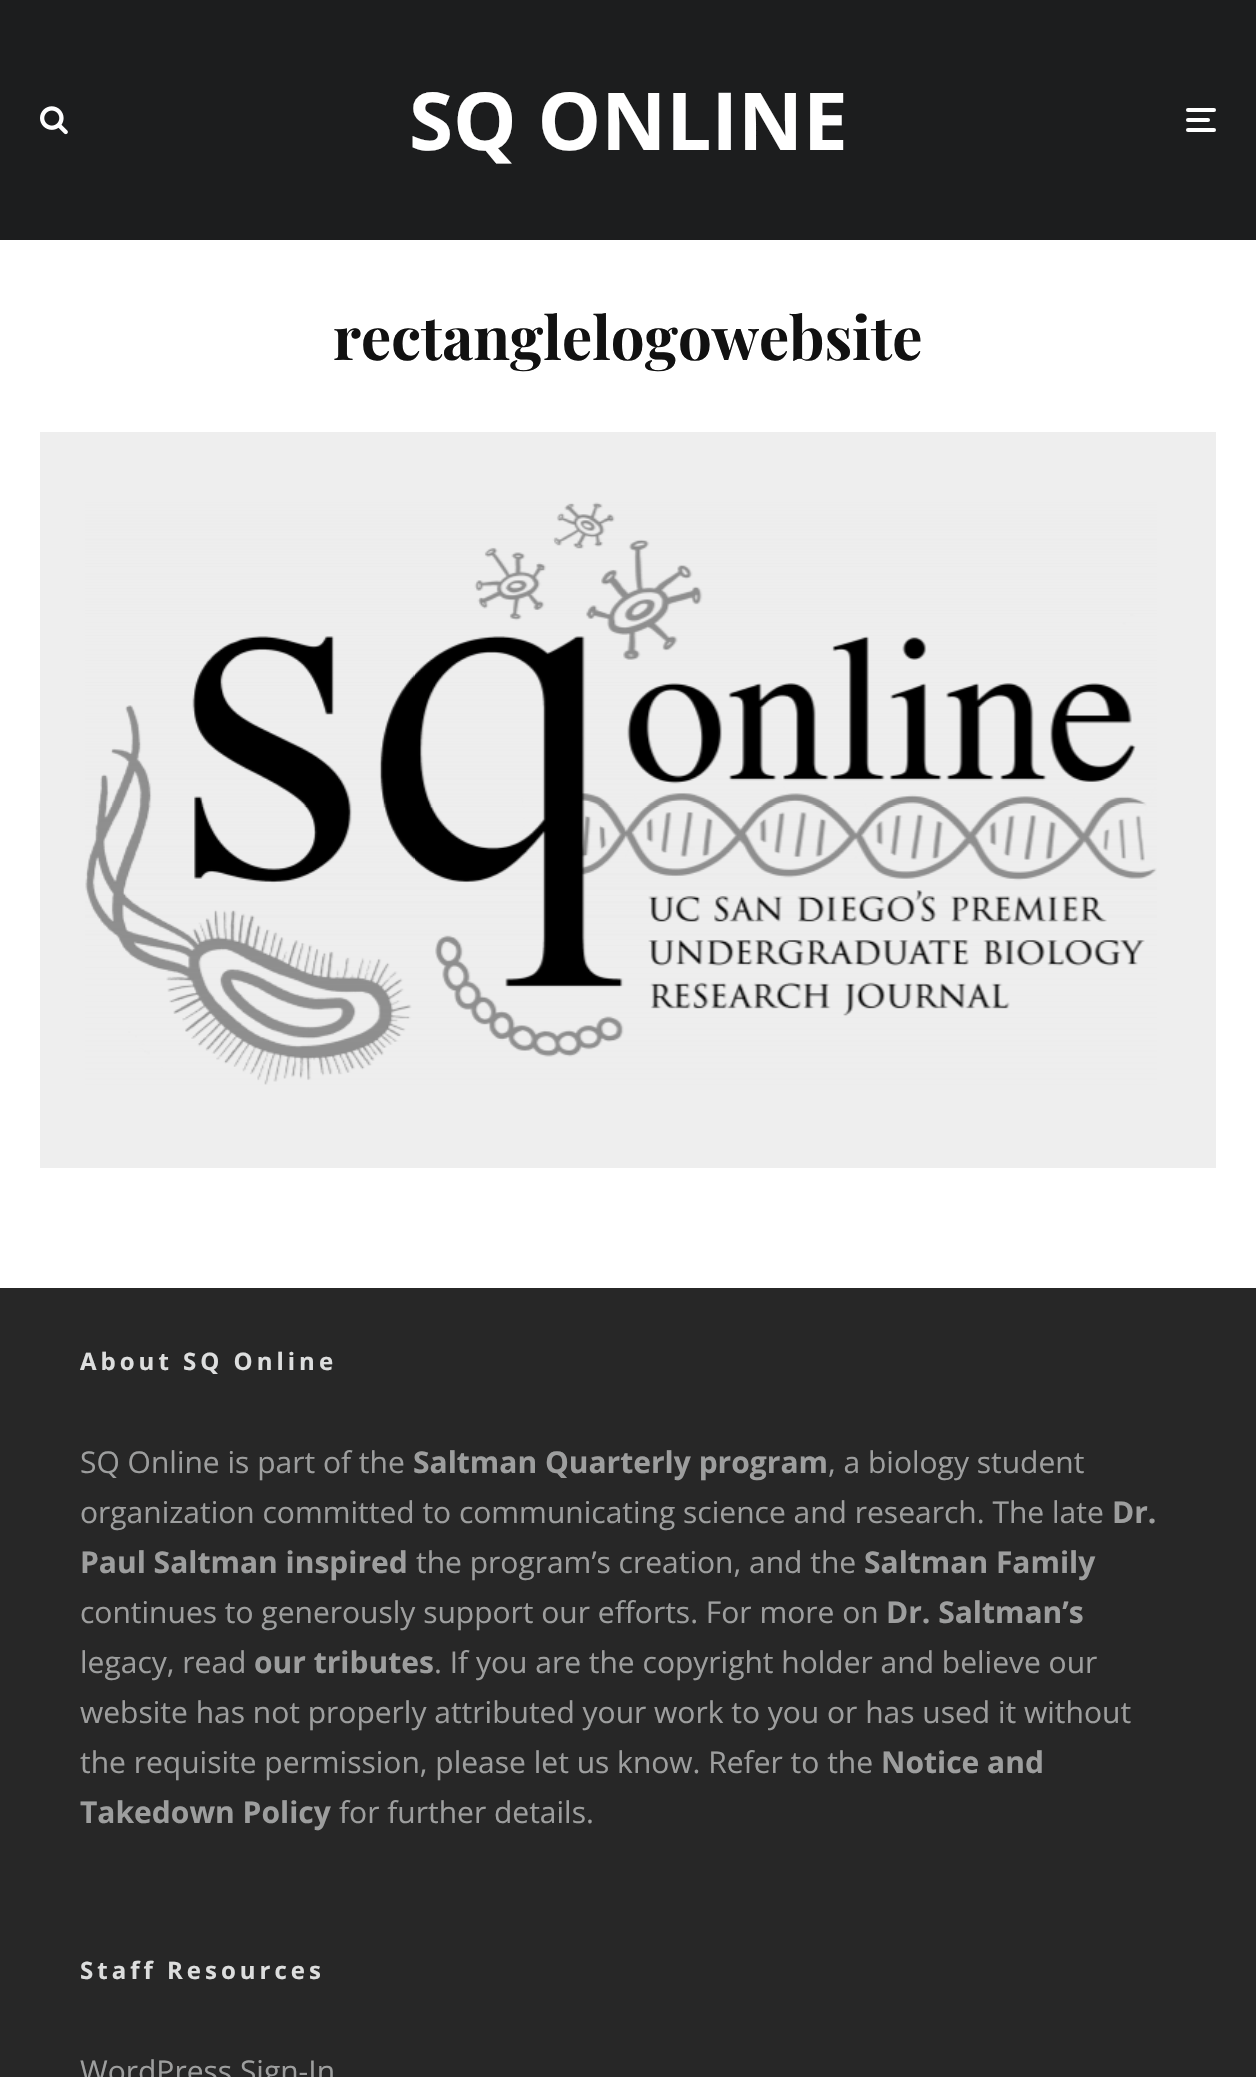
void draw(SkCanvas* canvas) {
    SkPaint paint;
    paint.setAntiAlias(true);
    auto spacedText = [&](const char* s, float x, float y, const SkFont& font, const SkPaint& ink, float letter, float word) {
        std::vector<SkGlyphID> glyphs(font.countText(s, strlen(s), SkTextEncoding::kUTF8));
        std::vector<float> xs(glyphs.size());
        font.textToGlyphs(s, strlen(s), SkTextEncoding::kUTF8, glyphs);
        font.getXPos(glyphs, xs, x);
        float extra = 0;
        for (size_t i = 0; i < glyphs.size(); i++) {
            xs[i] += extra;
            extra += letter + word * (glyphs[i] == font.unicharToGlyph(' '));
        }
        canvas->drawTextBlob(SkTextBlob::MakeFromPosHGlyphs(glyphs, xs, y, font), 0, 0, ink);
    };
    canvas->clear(0xFFFFFFFF);
    paint.setColor(0xFF1C1D1E);
    canvas->drawRect(SkRect::MakeXYWH(0, 0, 1256, 240), paint);
    canvas->drawImageRect(SkImages::DeferredFromEncodedData(SkData::MakeFromFileName("img1.png")), SkRect::MakeXYWH(40, 106, 28, 29), SkSamplingOptions());
    SkFont font1(fontMgr->matchFamilyStyle("Open Sans", SkFontStyle::Bold()), 80);
    font1.setSubpixel(true);
    paint.setColor(0xFFFFFFFF);
    canvas->drawString("SQ ONLINE", 409, 150, font1, paint);
    canvas->drawRoundRect(SkRect::MakeXYWH(1186, 118, 24, 4), 2, 2, paint);
    canvas->drawRoundRect(SkRect::MakeXYWH(1186, 108, 30, 4), 2, 2, paint);
    canvas->drawRoundRect(SkRect::MakeXYWH(1186, 128, 30, 4), 2, 2, paint);
    SkFont font2(fontMgr->matchFamilyStyle("Playfair Display", SkFontStyle::Bold()), 60);
    font2.setSubpixel(true);
    paint.setColor(0xFF111111);
    canvas->drawString("rectanglelogowebsite", 333, 360, font2, paint);
    paint.setColor(0xFFEEEEEE);
    canvas->drawRect(SkRect::MakeXYWH(40, 432, 1176, 736), paint);
    canvas->drawImageRect(SkImages::DeferredFromEncodedData(SkData::MakeFromFileName("img2.png")), SkRect::MakeXYWH(85, 502, 1072, 583), SkSamplingOptions());
    paint.setColor(0xFF272727);
    canvas->drawRect(SkRect::MakeXYWH(0, 1288, 1256, 789), paint);
    SkFont font3(fontMgr->matchFamilyStyle("Open Sans", SkFontStyle::Bold()), 24);
    font3.setSubpixel(true);
    paint.setColor(0xFFDDDEDE);
    spacedText("About SQ Online", 80, 1370, font3, paint, 4, 0);
    SkFont font4(fontMgr->matchFamilyStyle("Open Sans", SkFontStyle::Normal()), 30);
    font4.setSubpixel(true);
    paint.setColor(0xFF9D9E9E);
    canvas->drawString("SQ Online is part of the", 80, 1473, font4, paint);
    SkFont font5(fontMgr->matchFamilyStyle("Open Sans", SkFontStyle::Bold()), 30);
    font5.setSubpixel(true);
    canvas->drawString("Saltman Quarterly program", 413, 1473, font5, paint);
    canvas->drawString(", a biology student", 828, 1473, font4, paint);
    canvas->drawString("organization committed to communicating science and research. The late", 80, 1523, font4, paint);
    canvas->drawString("Dr.", 1112, 1523, font5, paint);
    canvas->drawString("Paul Saltman inspired", 80, 1573, font5, paint);
    canvas->drawString("the program’s creation, and the", 416, 1573, font4, paint);
    canvas->drawString("Saltman Family", 864, 1573, font5, paint);
    canvas->drawString("continues to generously support our efforts. For more on", 80, 1623, font4, paint);
    canvas->drawString("Dr. Saltman’s", 886, 1623, font5, paint);
    canvas->drawString("legacy, read", 80, 1673, font4, paint);
    canvas->drawString("our tributes", 254, 1673, font5, paint);
    canvas->drawString(". If you are the copyright holder and believe our", 434, 1673, font4, paint);
    canvas->drawString("website has not properly attributed your work to you or has used it without", 80, 1723, font4, paint);
    canvas->drawString("the requisite permission, please let us know. Refer to the", 80, 1773, font4, paint);
    canvas->drawString("Notice and", 881, 1773, font5, paint);
    canvas->drawString("Takedown Policy", 80, 1823, font5, paint);
    canvas->drawString("for further details.", 339, 1823, font4, paint);
    paint.setColor(0xFFDDDEDE);
    spacedText("Staff Resources", 80, 1979, font3, paint, 4, 0);
    paint.setColor(0xFF9D9E9E);
    canvas->drawString("WordPress Sign-In", 80, 2082, font4, paint);
}
